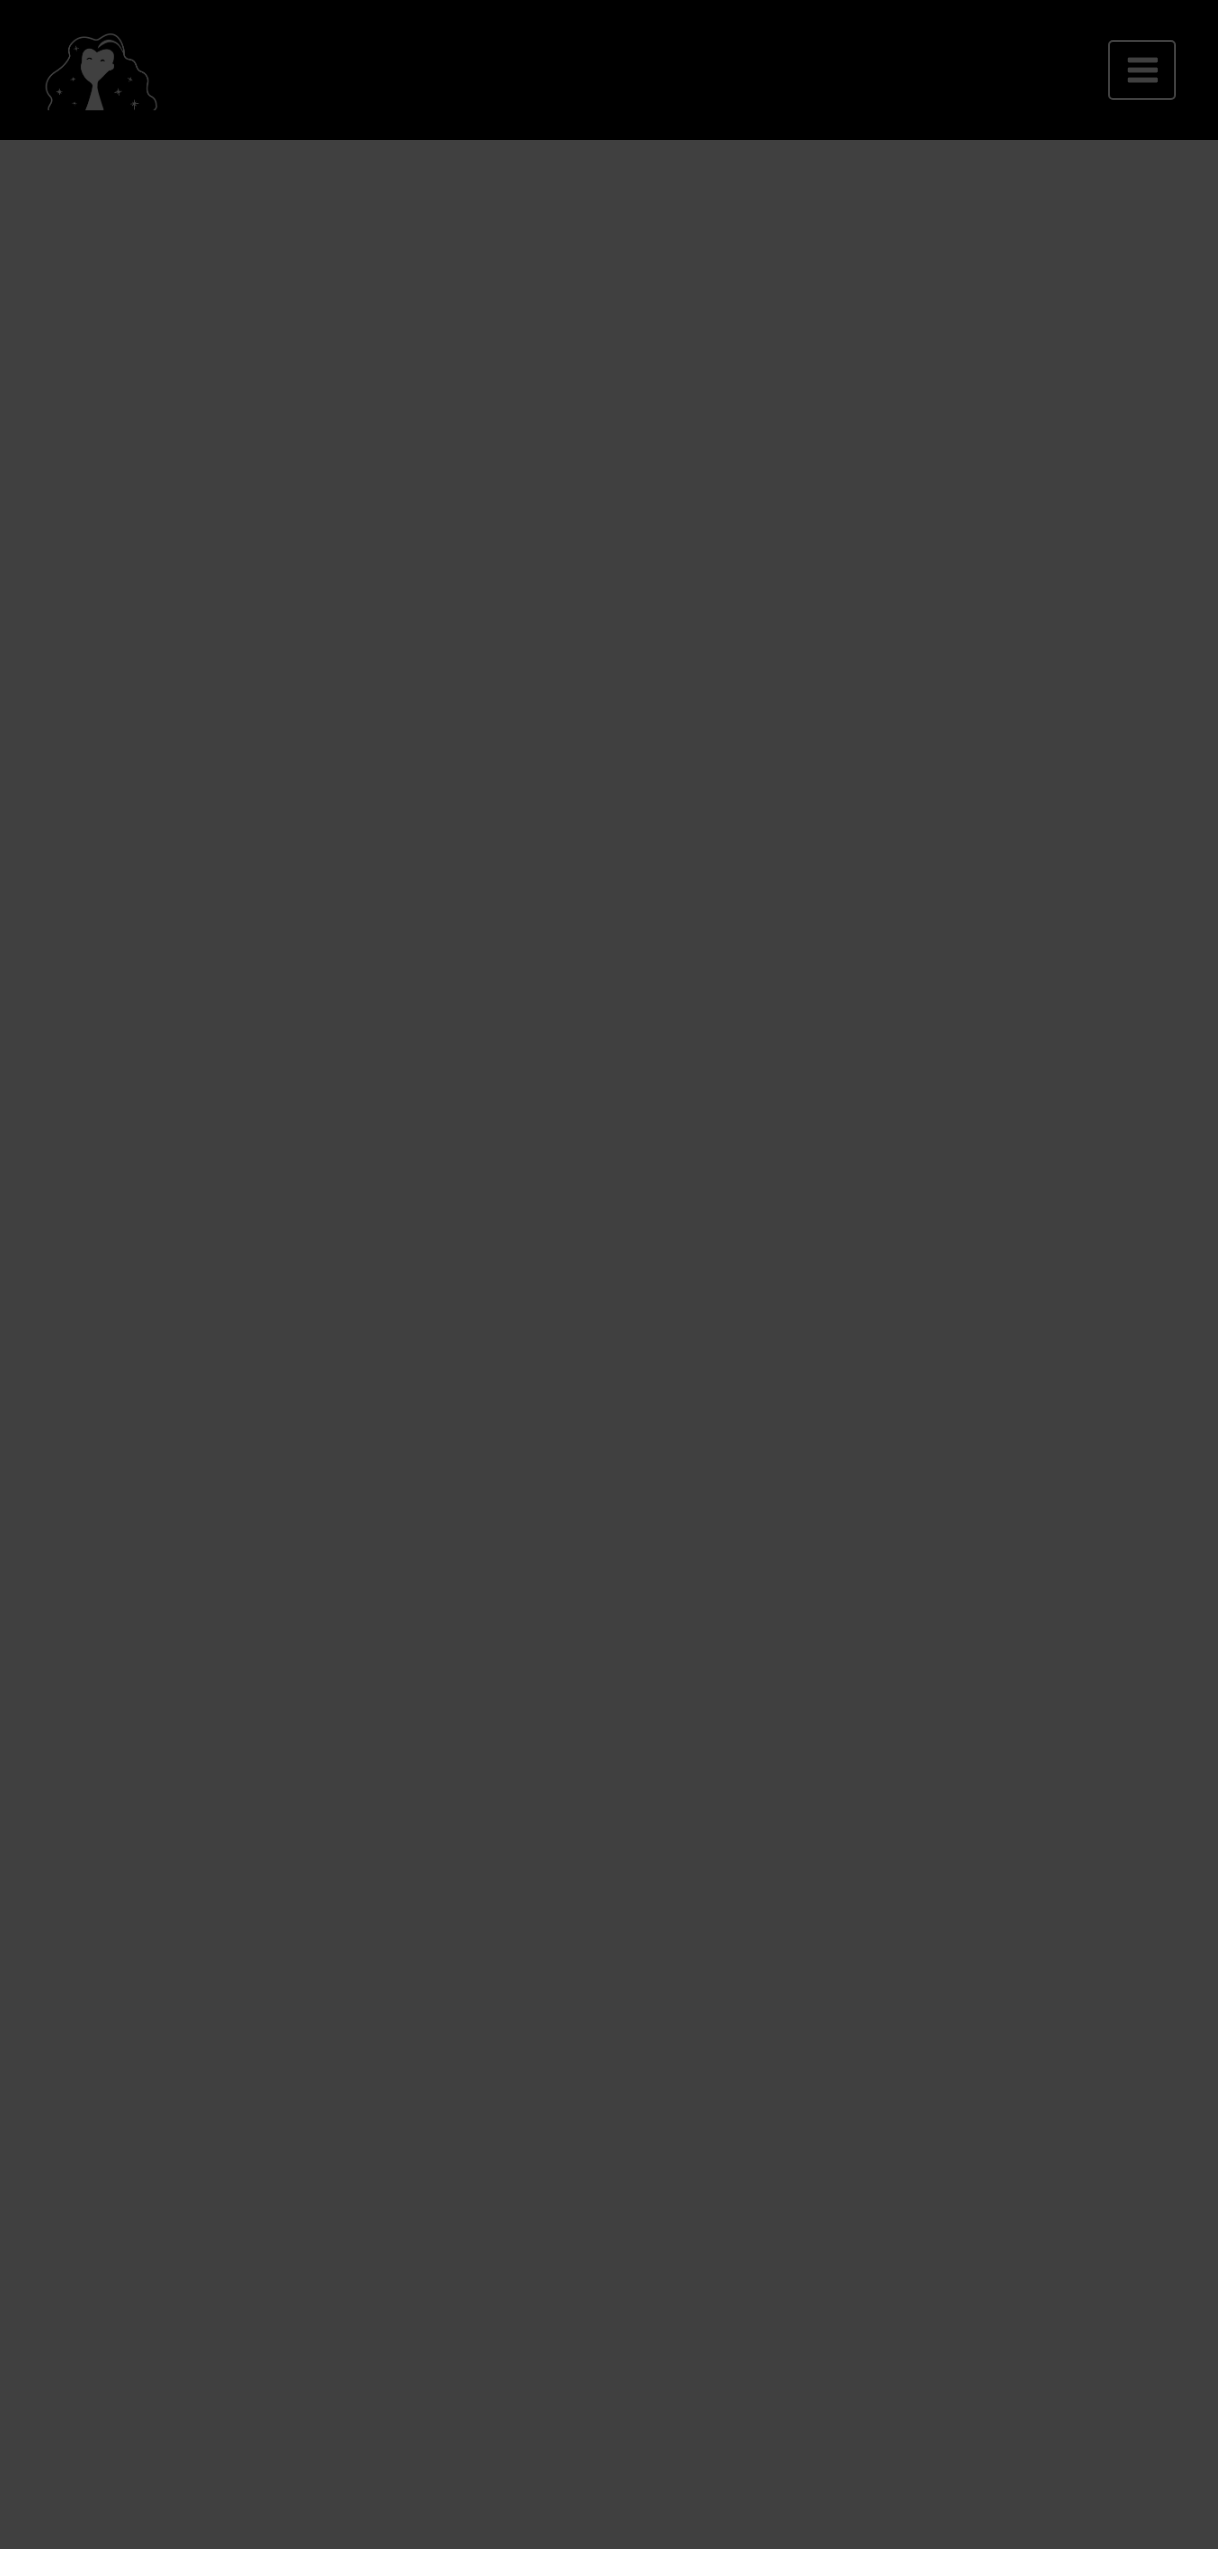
void draw(SkCanvas* canvas) {
    SkPaint paint;
    paint.setAntiAlias(true);
    canvas->clear(0xFF404040);
    paint.setColor(0xFF000000);
    canvas->drawRect(SkRect::MakeXYWH(0, 0, 1218, 140), paint);
    canvas->drawImageRect(SkImages::DeferredFromEncodedData(SkData::MakeFromFileName("img1.png")), SkRect::MakeXYWH(44, 33, 114, 78), SkSamplingOptions());
    paint.setStyle(SkPaint::kStroke_Style);
    paint.setStrokeWidth(2);
    paint.setColor(0xFF404040);
    canvas->drawRoundRect(SkRect::MakeXYWH(1109, 41, 66, 58), 4, 4, paint);
    canvas->drawImageRect(SkImages::DeferredFromEncodedData(SkData::MakeFromFileName("img2.png")), SkRect::MakeXYWH(1127, 57, 31, 26), SkSamplingOptions());
}
